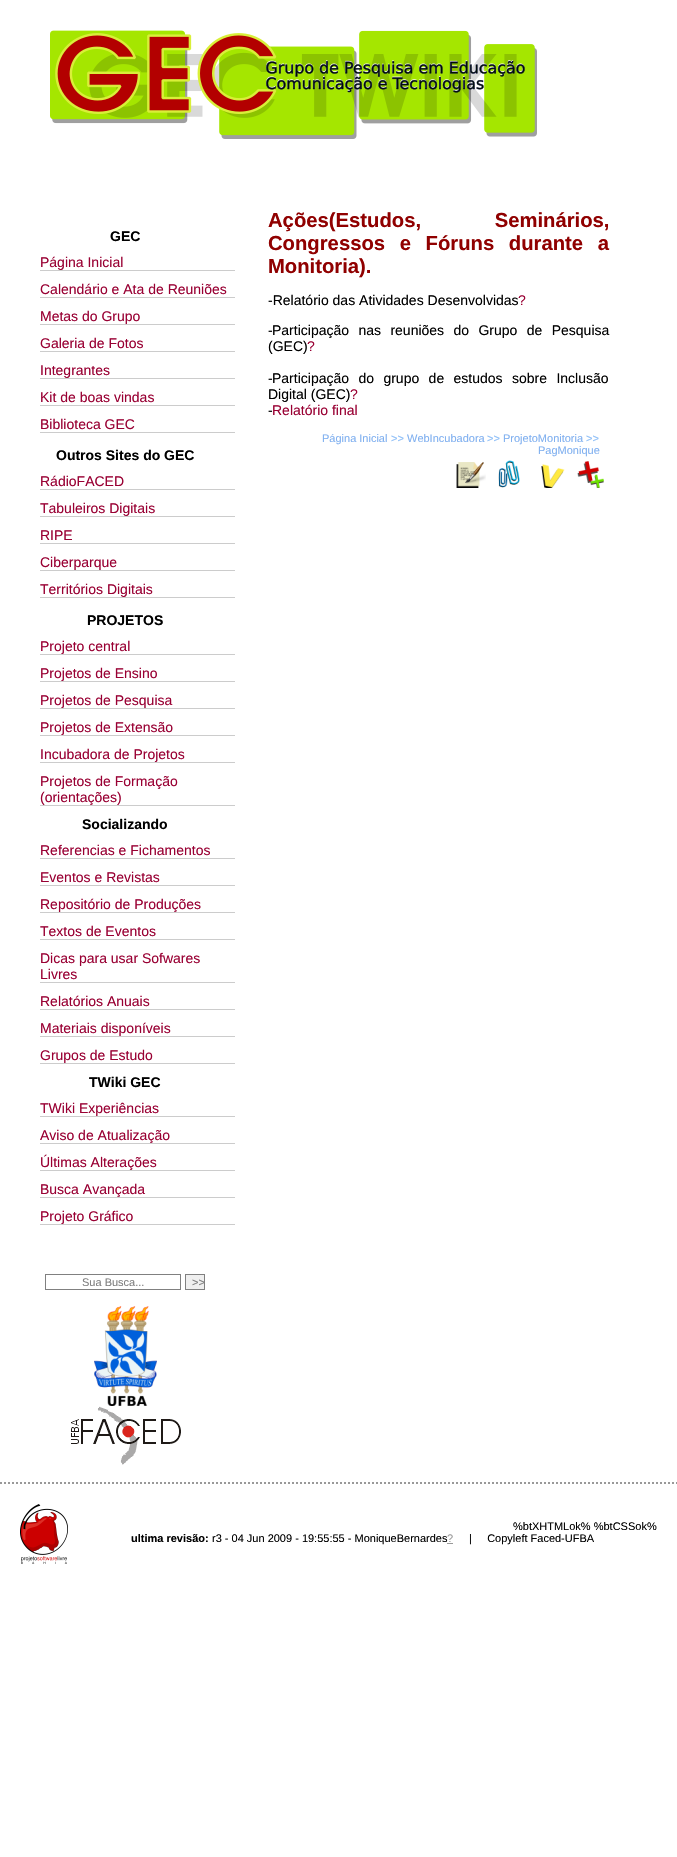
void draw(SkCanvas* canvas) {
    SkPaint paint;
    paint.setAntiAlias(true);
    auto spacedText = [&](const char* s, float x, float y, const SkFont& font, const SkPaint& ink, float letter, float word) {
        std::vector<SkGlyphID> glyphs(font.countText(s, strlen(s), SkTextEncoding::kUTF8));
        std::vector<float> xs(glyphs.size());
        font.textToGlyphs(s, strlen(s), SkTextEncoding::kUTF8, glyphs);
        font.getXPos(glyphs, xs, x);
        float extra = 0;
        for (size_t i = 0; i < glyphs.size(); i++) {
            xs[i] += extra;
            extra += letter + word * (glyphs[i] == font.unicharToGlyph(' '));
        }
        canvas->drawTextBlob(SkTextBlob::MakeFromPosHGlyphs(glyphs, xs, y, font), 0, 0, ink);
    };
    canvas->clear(0xFFFFFFFF);
    canvas->drawImageRect(SkImages::DeferredFromEncodedData(SkData::MakeFromFileName("img1.png")), SkRect::MakeXYWH(50, 30, 487, 109), SkSamplingOptions());
    SkFont font1(fontMgr->matchFamilyStyle("Liberation Sans", SkFontStyle::Bold()), 14);
    font1.setSubpixel(true);
    paint.setColor(0xFF000000);
    canvas->drawString("GEC", 110, 241, font1, paint);
    paint.setColor(0xFFCCCCCC);
    canvas->drawRect(SkRect::MakeXYWH(40, 270, 195, 1), paint);
    SkFont font2(fontMgr->matchFamilyStyle("Liberation Sans", SkFontStyle::Normal()), 14);
    font2.setSubpixel(true);
    paint.setColor(0xFF990033);
    canvas->drawString("Página Inicial", 40, 267, font2, paint);
    paint.setColor(0xFFCCCCCC);
    canvas->drawRect(SkRect::MakeXYWH(40, 297, 195, 1), paint);
    paint.setColor(0xFF990033);
    canvas->drawString("Calendário e Ata de Reuniões", 40, 294, font2, paint);
    paint.setColor(0xFFCCCCCC);
    canvas->drawRect(SkRect::MakeXYWH(40, 324, 195, 1), paint);
    paint.setColor(0xFF990033);
    canvas->drawString("Metas do Grupo", 40, 321, font2, paint);
    paint.setColor(0xFFCCCCCC);
    canvas->drawRect(SkRect::MakeXYWH(40, 351, 195, 1), paint);
    paint.setColor(0xFF990033);
    canvas->drawString("Galeria de Fotos", 40, 348, font2, paint);
    paint.setColor(0xFFCCCCCC);
    canvas->drawRect(SkRect::MakeXYWH(40, 378, 195, 1), paint);
    paint.setColor(0xFF990033);
    canvas->drawString("Integrantes", 40, 375, font2, paint);
    paint.setColor(0xFFCCCCCC);
    canvas->drawRect(SkRect::MakeXYWH(40, 405, 195, 1), paint);
    paint.setColor(0xFF990033);
    canvas->drawString("Kit de boas vindas", 40, 402, font2, paint);
    paint.setColor(0xFFCCCCCC);
    canvas->drawRect(SkRect::MakeXYWH(40, 432, 195, 1), paint);
    paint.setColor(0xFF990033);
    canvas->drawString("Biblioteca GEC", 40, 429, font2, paint);
    paint.setColor(0xFF000000);
    canvas->drawString("Outros Sites do GEC", 56, 460, font1, paint);
    paint.setColor(0xFFCCCCCC);
    canvas->drawRect(SkRect::MakeXYWH(40, 489, 195, 1), paint);
    paint.setColor(0xFF990033);
    canvas->drawString("RádioFACED", 40, 486, font2, paint);
    paint.setColor(0xFFCCCCCC);
    canvas->drawRect(SkRect::MakeXYWH(40, 516, 195, 1), paint);
    paint.setColor(0xFF990033);
    canvas->drawString("Tabuleiros Digitais", 40, 513, font2, paint);
    paint.setColor(0xFFCCCCCC);
    canvas->drawRect(SkRect::MakeXYWH(40, 543, 195, 1), paint);
    paint.setColor(0xFF990033);
    canvas->drawString("RIPE", 40, 540, font2, paint);
    paint.setColor(0xFFCCCCCC);
    canvas->drawRect(SkRect::MakeXYWH(40, 570, 195, 1), paint);
    paint.setColor(0xFF990033);
    canvas->drawString("Ciberparque", 40, 567, font2, paint);
    paint.setColor(0xFFCCCCCC);
    canvas->drawRect(SkRect::MakeXYWH(40, 597, 195, 1), paint);
    paint.setColor(0xFF990033);
    canvas->drawString("Territórios Digitais", 40, 594, font2, paint);
    paint.setColor(0xFF000000);
    canvas->drawString("PROJETOS", 87, 625, font1, paint);
    paint.setColor(0xFFCCCCCC);
    canvas->drawRect(SkRect::MakeXYWH(40, 654, 195, 1), paint);
    paint.setColor(0xFF990033);
    canvas->drawString("Projeto central", 40, 651, font2, paint);
    paint.setColor(0xFFCCCCCC);
    canvas->drawRect(SkRect::MakeXYWH(40, 681, 195, 1), paint);
    paint.setColor(0xFF990033);
    canvas->drawString("Projetos de Ensino", 40, 678, font2, paint);
    paint.setColor(0xFFCCCCCC);
    canvas->drawRect(SkRect::MakeXYWH(40, 708, 195, 1), paint);
    paint.setColor(0xFF990033);
    canvas->drawString("Projetos de Pesquisa", 40, 705, font2, paint);
    paint.setColor(0xFFCCCCCC);
    canvas->drawRect(SkRect::MakeXYWH(40, 735, 195, 1), paint);
    paint.setColor(0xFF990033);
    canvas->drawString("Projetos de Extensão", 40, 732, font2, paint);
    paint.setColor(0xFFCCCCCC);
    canvas->drawRect(SkRect::MakeXYWH(40, 762, 195, 1), paint);
    paint.setColor(0xFF990033);
    canvas->drawString("Incubadora de Projetos", 40, 759, font2, paint);
    paint.setColor(0xFFCCCCCC);
    canvas->drawRect(SkRect::MakeXYWH(40, 805, 195, 1), paint);
    paint.setColor(0xFF990033);
    canvas->drawString("Projetos de Formação", 40, 786, font2, paint);
    canvas->drawString("(orientações)", 40, 802, font2, paint);
    paint.setColor(0xFF000000);
    canvas->drawString("Socializando", 82, 829, font1, paint);
    paint.setColor(0xFFCCCCCC);
    canvas->drawRect(SkRect::MakeXYWH(40, 858, 195, 1), paint);
    paint.setColor(0xFF990033);
    canvas->drawString("Referencias e Fichamentos", 40, 855, font2, paint);
    paint.setColor(0xFFCCCCCC);
    canvas->drawRect(SkRect::MakeXYWH(40, 885, 195, 1), paint);
    paint.setColor(0xFF990033);
    canvas->drawString("Eventos e Revistas", 40, 882, font2, paint);
    paint.setColor(0xFFCCCCCC);
    canvas->drawRect(SkRect::MakeXYWH(40, 912, 195, 1), paint);
    paint.setColor(0xFF990033);
    canvas->drawString("Repositório de Produções", 40, 909, font2, paint);
    paint.setColor(0xFFCCCCCC);
    canvas->drawRect(SkRect::MakeXYWH(40, 939, 195, 1), paint);
    paint.setColor(0xFF990033);
    canvas->drawString("Textos de Eventos", 40, 936, font2, paint);
    paint.setColor(0xFFCCCCCC);
    canvas->drawRect(SkRect::MakeXYWH(40, 982, 195, 1), paint);
    paint.setColor(0xFF990033);
    canvas->drawString("Dicas para usar Sofwares", 40, 963, font2, paint);
    canvas->drawString("Livres", 40, 979, font2, paint);
    paint.setColor(0xFFCCCCCC);
    canvas->drawRect(SkRect::MakeXYWH(40, 1009, 195, 1), paint);
    paint.setColor(0xFF990033);
    canvas->drawString("Relatórios Anuais", 40, 1006, font2, paint);
    paint.setColor(0xFFCCCCCC);
    canvas->drawRect(SkRect::MakeXYWH(40, 1036, 195, 1), paint);
    paint.setColor(0xFF990033);
    canvas->drawString("Materiais disponíveis", 40, 1033, font2, paint);
    paint.setColor(0xFFCCCCCC);
    canvas->drawRect(SkRect::MakeXYWH(40, 1063, 195, 1), paint);
    paint.setColor(0xFF990033);
    canvas->drawString("Grupos de Estudo", 40, 1060, font2, paint);
    paint.setColor(0xFF000000);
    canvas->drawString("TWiki GEC", 89, 1087, font1, paint);
    paint.setColor(0xFFCCCCCC);
    canvas->drawRect(SkRect::MakeXYWH(40, 1116, 195, 1), paint);
    paint.setColor(0xFF990033);
    canvas->drawString("TWiki Experiências", 40, 1113, font2, paint);
    paint.setColor(0xFFCCCCCC);
    canvas->drawRect(SkRect::MakeXYWH(40, 1143, 195, 1), paint);
    paint.setColor(0xFF990033);
    canvas->drawString("Aviso de Atualização", 40, 1140, font2, paint);
    paint.setColor(0xFFCCCCCC);
    canvas->drawRect(SkRect::MakeXYWH(40, 1170, 195, 1), paint);
    paint.setColor(0xFF990033);
    canvas->drawString("Últimas Alterações", 40, 1167, font2, paint);
    paint.setColor(0xFFCCCCCC);
    canvas->drawRect(SkRect::MakeXYWH(40, 1197, 195, 1), paint);
    paint.setColor(0xFF990033);
    canvas->drawString("Busca Avançada", 40, 1194, font2, paint);
    paint.setColor(0xFFCCCCCC);
    canvas->drawRect(SkRect::MakeXYWH(40, 1224, 195, 1), paint);
    paint.setColor(0xFF990033);
    canvas->drawString("Projeto Gráfico", 40, 1221, font2, paint);
    paint.setStyle(SkPaint::kStroke_Style);
    paint.setStrokeWidth(1);
    paint.setColor(0xFF808080);
    canvas->drawRect(SkRect::MakeXYWH(45.5f, 1274.5f, 135, 15), paint);
    SkFont font3(fontMgr->matchFamilyStyle("Liberation Sans", SkFontStyle::Normal()), 11);
    font3.setSubpixel(true);
    paint.setStyle(SkPaint::kFill_Style);
    canvas->drawString("Sua Busca...", 82, 1286, font3, paint);
    paint.setColor(0xFFEFEFEF);
    canvas->drawRect(SkRect::MakeXYWH(185.5f, 1274.5f, 19, 15), paint);
    paint.setStyle(SkPaint::kStroke_Style);
    paint.setColor(0xFF808080);
    canvas->drawRect(SkRect::MakeXYWH(185.5f, 1274.5f, 19, 15), paint);
    paint.setStyle(SkPaint::kFill_Style);
    canvas->drawString(">>", 192, 1286, font3, paint);
    canvas->drawImageRect(SkImages::DeferredFromEncodedData(SkData::MakeFromFileName("img2.png")), SkRect::MakeXYWH(94, 1306, 63, 100), SkSamplingOptions());
    canvas->drawImageRect(SkImages::DeferredFromEncodedData(SkData::MakeFromFileName("img3.png")), SkRect::MakeXYWH(71, 1406, 110, 59), SkSamplingOptions());
    SkFont font4(fontMgr->matchFamilyStyle("Liberation Sans", SkFontStyle::Bold()), 20.25f);
    font4.setSubpixel(true);
    paint.setColor(0xFF900000);
    spacedText("Ações(Estudos, Seminários,", 268, 227, font4, paint, 0, 68);
    spacedText("Congressos e Fóruns durante a", 268, 250, font4, paint, 0, 9);
    canvas->drawString("Monitoria).", 268, 273, font4, paint);
    paint.setColor(0xFF000000);
    canvas->drawString("-Relatório das Atividades Desenvolvidas", 268, 305, font2, paint);
    paint.setColor(0xFF990033);
    canvas->drawString("?", 518, 305, font2, paint);
    paint.setColor(0xFF000000);
    canvas->drawString("-", 268, 335, font2, paint);
    spacedText("Participação nas reuniões do Grupo de Pesquisa", 272, 335, font2, paint, 0, 5.5f);
    canvas->drawString("(GEC)", 268, 351, font2, paint);
    paint.setColor(0xFF990033);
    canvas->drawString("?", 307, 351, font2, paint);
    paint.setColor(0xFF000000);
    canvas->drawString("-", 268, 383, font2, paint);
    spacedText("Participação do grupo de estudos sobre Inclusão", 272, 383, font2, paint, 0, 5.5f);
    canvas->drawString("Digital (GEC)", 268, 399, font2, paint);
    paint.setColor(0xFF990033);
    canvas->drawString("?", 350, 399, font2, paint);
    paint.setColor(0xFF000000);
    canvas->drawString("-", 268, 415, font2, paint);
    paint.setColor(0xFF990033);
    canvas->drawString("Relatório final", 272, 415, font2, paint);
    paint.setColor(0xFF80B0F0);
    canvas->drawString("Página Inicial", 322, 442, font3, paint);
    paint.setColor(0xFF90C0F8);
    canvas->drawString(">>", 391, 442, font3, paint);
    paint.setColor(0xFF80B0F0);
    canvas->drawString("WebIncubadora", 407, 442, font3, paint);
    paint.setColor(0xFF90C0F8);
    canvas->drawString(">>", 487, 442, font3, paint);
    paint.setColor(0xFF80B0F0);
    canvas->drawString("ProjetoMonitoria", 503, 442, font3, paint);
    paint.setColor(0xFF90C0F8);
    canvas->drawString(">>", 586, 442, font3, paint);
    paint.setColor(0xFF80B0F0);
    canvas->drawString("PagMonique", 538, 454, font3, paint);
    canvas->drawImageRect(SkImages::DeferredFromEncodedData(SkData::MakeFromFileName("img4.png")), SkRect::MakeXYWH(456, 462, 30, 26), SkSamplingOptions());
    canvas->drawImageRect(SkImages::DeferredFromEncodedData(SkData::MakeFromFileName("img5.png")), SkRect::MakeXYWH(498, 460, 22, 28), SkSamplingOptions());
    canvas->drawImageRect(SkImages::DeferredFromEncodedData(SkData::MakeFromFileName("img6.png")), SkRect::MakeXYWH(541, 464, 24, 24), SkSamplingOptions());
    canvas->drawImageRect(SkImages::DeferredFromEncodedData(SkData::MakeFromFileName("img7.png")), SkRect::MakeXYWH(577, 461, 27, 27), SkSamplingOptions());
    paint.setStyle(SkPaint::kStroke_Style);
    paint.setStrokeWidth(2);
    paint.setColor(0xFF999999);
    paint.setPathEffect(SkDashPathEffect::Make({{2, 2}}, 0));
    canvas->drawPath(SkPathBuilder().moveTo(0, 1483).lineTo(677, 1483).detach(), paint);
    paint.setPathEffect(nullptr);
    canvas->drawImageRect(SkImages::DeferredFromEncodedData(SkData::MakeFromFileName("img8.png")), SkRect::MakeXYWH(20, 1504, 48, 60), SkSamplingOptions());
    paint.setStyle(SkPaint::kFill_Style);
    paint.setColor(0xFF000000);
    canvas->drawString("%btXHTMLok% %btCSSok%", 513, 1530, font3, paint);
    SkFont font5(fontMgr->matchFamilyStyle("Liberation Sans", SkFontStyle::Bold()), 11);
    font5.setSubpixel(true);
    canvas->drawString("ultima revisão:", 131, 1542, font5, paint);
    canvas->drawString("r3 - 04 Jun 2009 - 19:55:55 - MoniqueBernardes", 212, 1542, font3, paint);
    paint.setColor(0xFF999999);
    canvas->drawString("?", 447, 1542, font3, paint);
    canvas->drawRect(SkRect::MakeXYWH(447, 1543, 6, 1), paint);
    paint.setColor(0xFF000000);
    canvas->drawString("|     Copyleft Faced-UFBA", 469, 1542, font3, paint);
}
